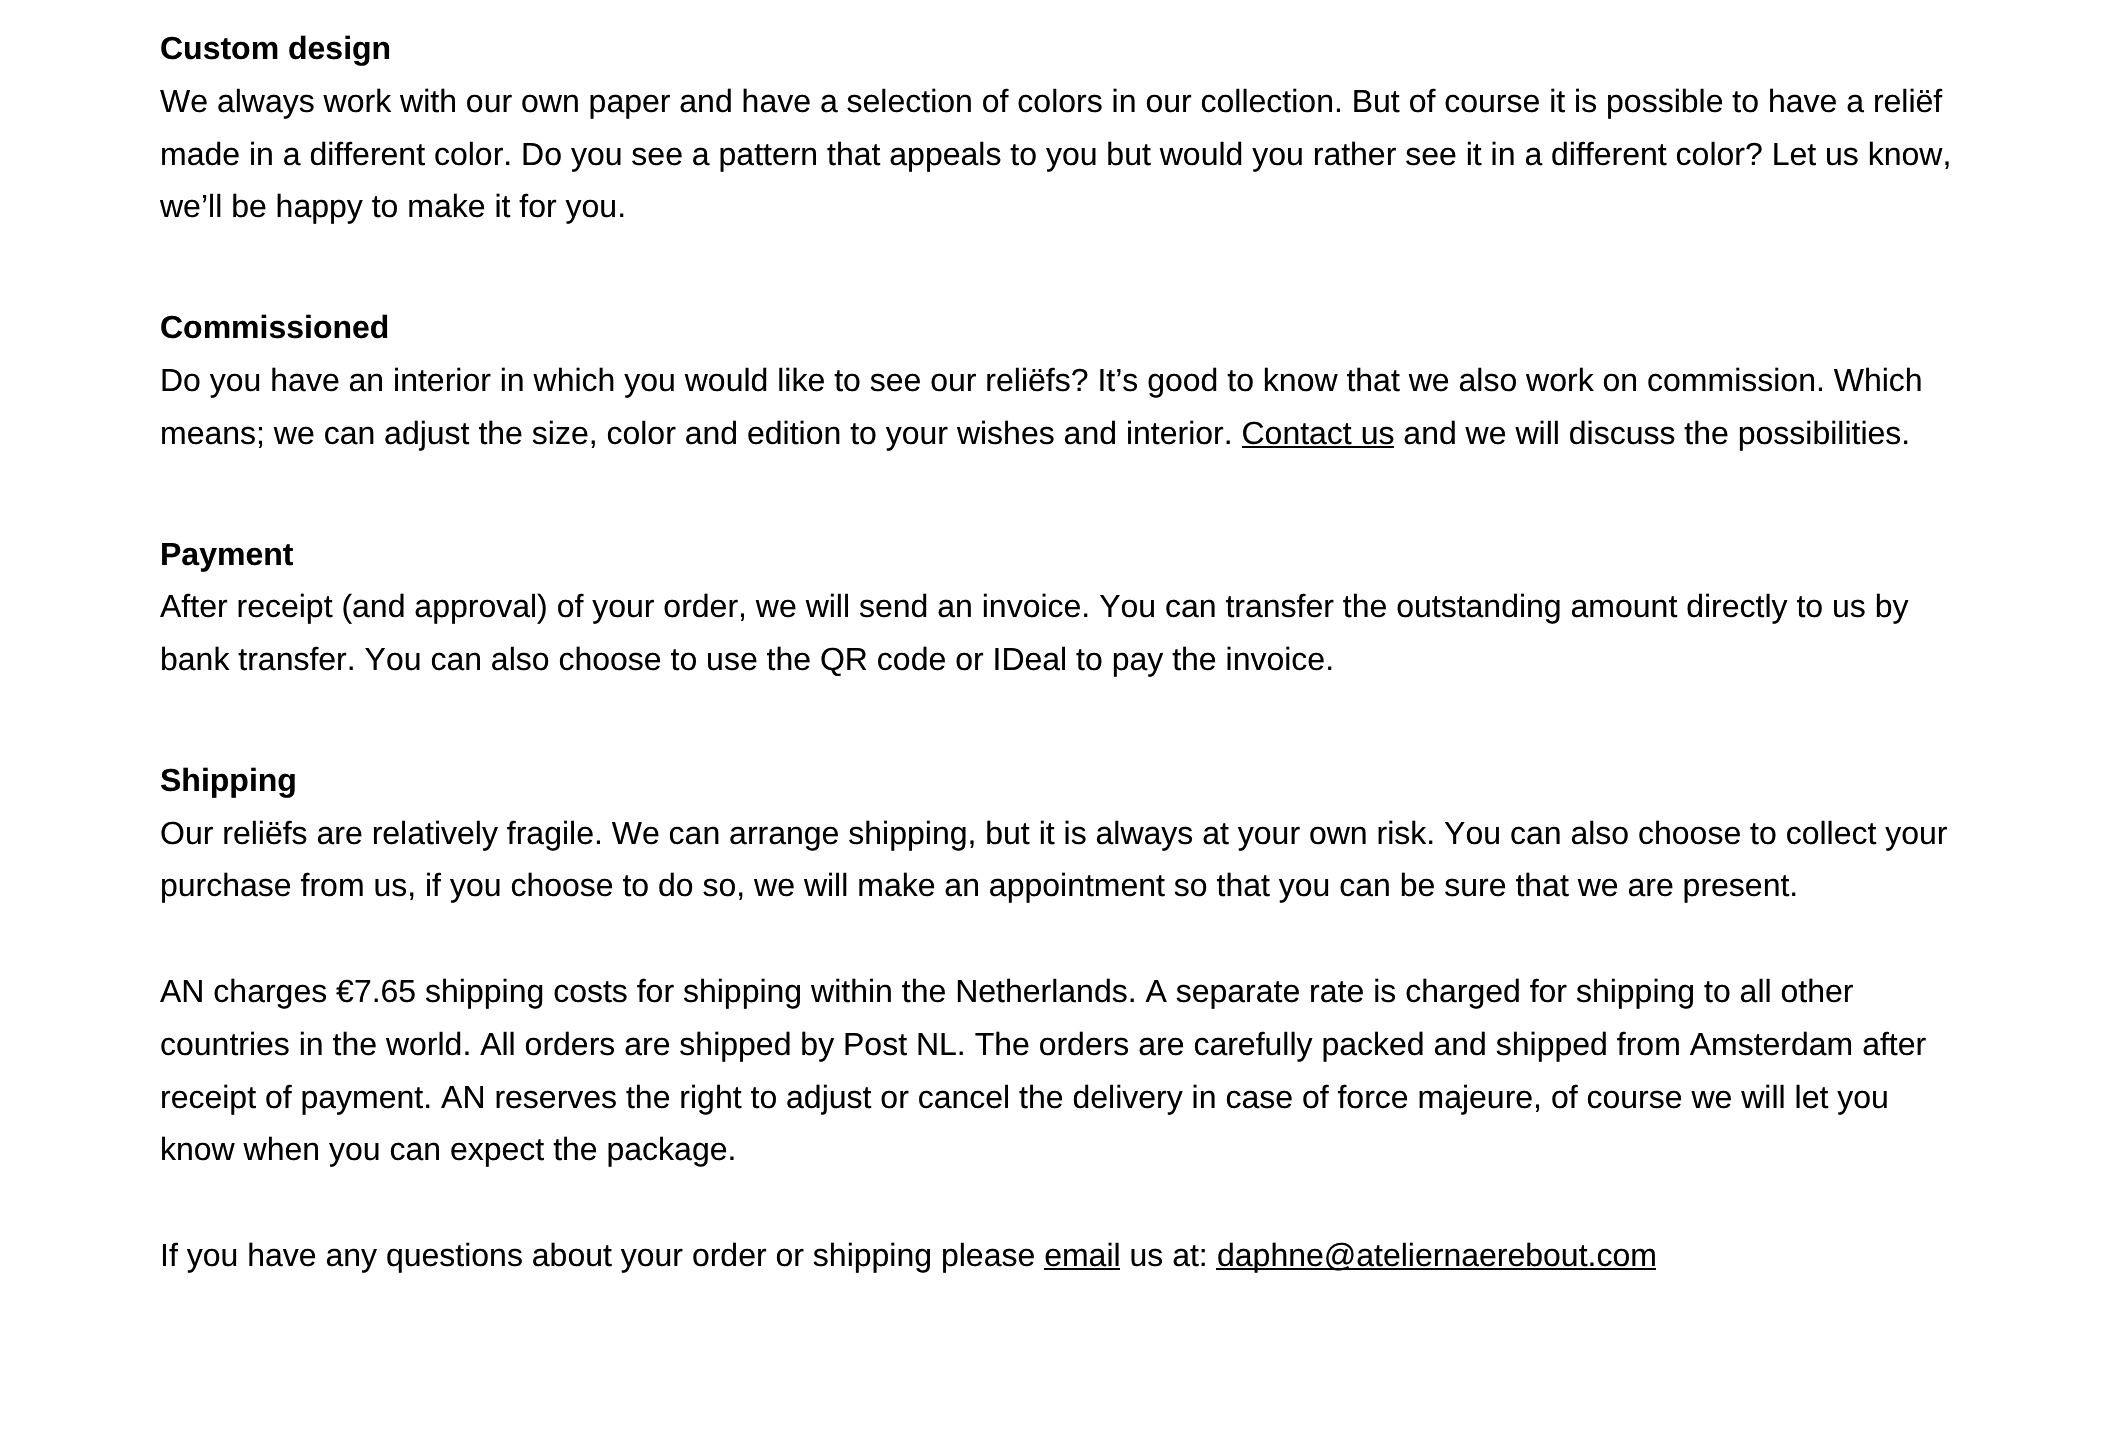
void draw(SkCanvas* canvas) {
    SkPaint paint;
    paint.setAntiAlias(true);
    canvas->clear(0xFFFFFFFF);
    SkFont font1(fontMgr->matchFamilyStyle("Liberation Sans", SkFontStyle::Bold()), 32);
    font1.setSubpixel(true);
    paint.setColor(0xFF000000);
    canvas->drawString("Custom design", 160, 59, font1, paint);
    SkFont font2(fontMgr->matchFamilyStyle("Liberation Sans", SkFontStyle::Normal()), 32);
    font2.setSubpixel(true);
    canvas->drawString("We always work with our own paper and have a selection of colors in our collection. But of course it is possible to have a reliëf", 160, 112, font2, paint);
    canvas->drawString("made in a different color. Do you see a pattern that appeals to you but would you rather see it in a different color? Let us know,", 160, 165, font2, paint);
    canvas->drawString("we’ll be happy to make it for you.", 160, 217, font2, paint);
    canvas->drawString("Commissioned", 160, 338, font1, paint);
    canvas->drawString("Do you have an interior in which you would like to see our reliëfs? It’s good to know that we also work on commission. Which", 160, 391, font2, paint);
    canvas->drawString("means; we can adjust the size, color and edition to your wishes and interior. Contact us and we will discuss the possibilities.", 160, 444, font2, paint);
    canvas->drawRect(SkRect::MakeXYWH(1242, 446, 152, 2), paint);
    canvas->drawString("Payment", 160, 565, font1, paint);
    canvas->drawString("After receipt (and approval) of your order, we will send an invoice. You can transfer the outstanding amount directly to us by", 160, 617, font2, paint);
    canvas->drawString("bank transfer. You can also choose to use the QR code or IDeal to pay the invoice.", 160, 670, font2, paint);
    canvas->drawString("Shipping", 160, 791, font1, paint);
    canvas->drawString("Our reliëfs are relatively fragile. We can arrange shipping, but it is always at your own risk. You can also choose to collect your", 160, 844, font2, paint);
    canvas->drawString("purchase from us, if you choose to do so, we will make an appointment so that you can be sure that we are present.", 160, 896, font2, paint);
    canvas->drawString("AN charges €7.65 shipping costs for shipping within the Netherlands. A separate rate is charged for shipping to all other", 160, 1002, font2, paint);
    canvas->drawString("countries in the world. All orders are shipped by Post NL. The orders are carefully packed and shipped from Amsterdam after", 160, 1055, font2, paint);
    canvas->drawString("receipt of payment. AN reserves the right to adjust or cancel the delivery in case of force majeure, of course we will let you", 160, 1108, font2, paint);
    canvas->drawString("know when you can expect the package.", 160, 1160, font2, paint);
    canvas->drawString("If you have any questions about your order or shipping please email us at:", 160, 1266, font2, paint);
    canvas->drawRect(SkRect::MakeXYWH(1216, 1268, 440, 2), paint);
    canvas->drawString("daphne@ateliernaerebout.com", 1217, 1266, font2, paint);
    canvas->drawRect(SkRect::MakeXYWH(1044, 1268, 76, 2), paint);
}
